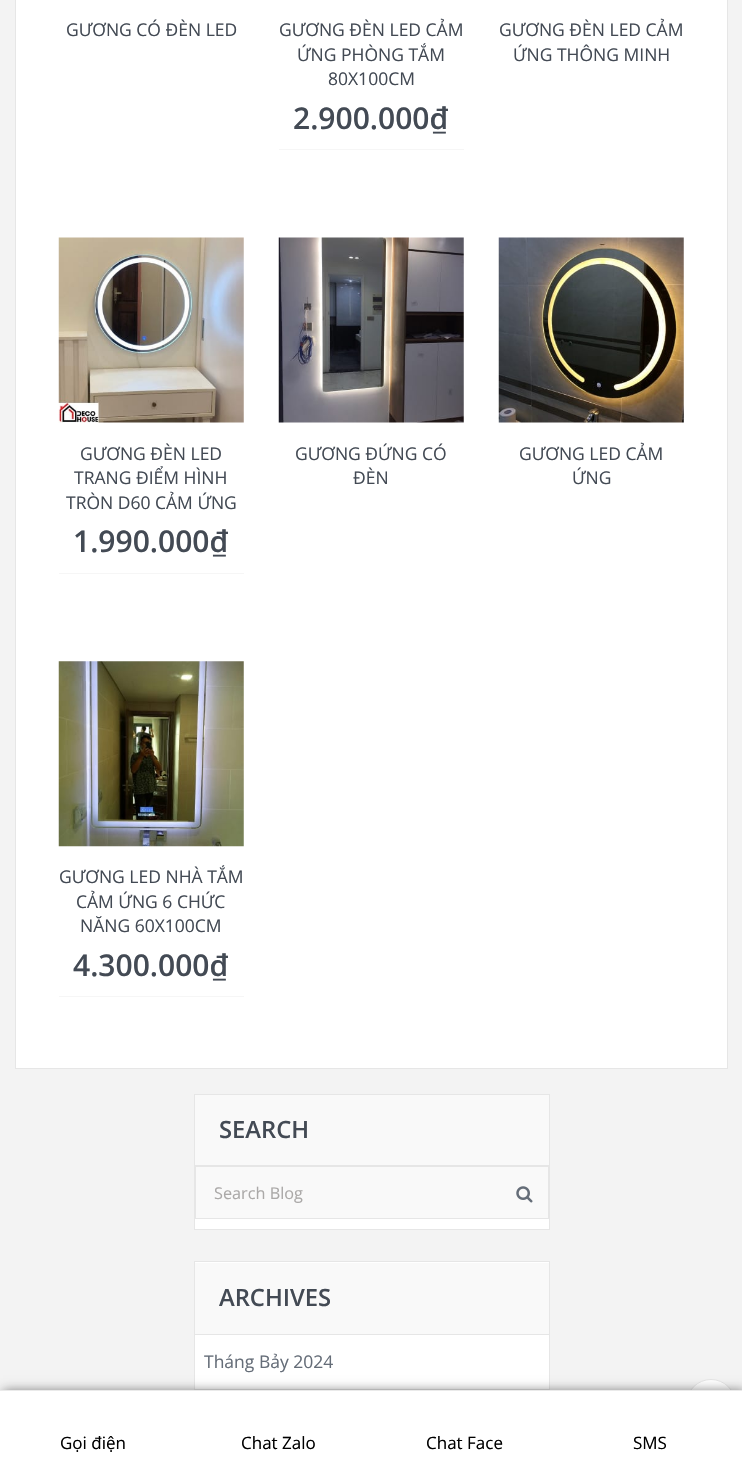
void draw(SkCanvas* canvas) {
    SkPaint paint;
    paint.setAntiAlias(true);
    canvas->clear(0xFFF3F3F3);
    paint.setColor(0xFFFFFFFF);
    canvas->drawRect(SkRect::MakeXYWH(15.5f, -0.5f, 712, 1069), paint);
    paint.setStyle(SkPaint::kStroke_Style);
    paint.setStrokeWidth(1);
    paint.setColor(0xFFE6E6E6);
    canvas->drawRect(SkRect::MakeXYWH(15.5f, -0.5f, 712, 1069), paint);
    SkFont font1(fontMgr->matchFamilyStyle("Open Sans", SkFontStyle::Normal()), 17.5f);
    font1.setSubpixel(true);
    paint.setStyle(SkPaint::kFill_Style);
    paint.setColor(0xFF434A54);
    canvas->drawString("GƯƠNG CÓ ĐÈN LED", 66, 36, font1, paint);
    canvas->drawString("GƯƠNG ĐÈN LED CẢM", 279, 36, font1, paint);
    canvas->drawString("ỨNG PHÒNG TẮM", 297, 61, font1, paint);
    canvas->drawString("80X100CM", 328, 85, font1, paint);
    paint.setColor(0xFFF6F6F6);
    canvas->drawRect(SkRect::MakeXYWH(279, 149, 185, 1), paint);
    SkFont font2(fontMgr->matchFamilyStyle("Open Sans", SkFontStyle(600, SkFontStyle::kNormal_Width, SkFontStyle::kUpright_Slant)), 30);
    font2.setSubpixel(true);
    paint.setColor(0xFF434A54);
    canvas->drawString("2.900.000₫", 293, 129, font2, paint);
    canvas->drawString("GƯƠNG ĐÈN LED CẢM", 499, 36, font1, paint);
    canvas->drawString("ỨNG THÔNG MINH", 513, 61, font1, paint);
    canvas->drawImageRect(SkImages::DeferredFromEncodedData(SkData::MakeFromFileName("img1.png")), SkRect::MakeXYWH(58, 237, 186, 186), SkSamplingOptions());
    canvas->drawString("GƯƠNG ĐÈN LED", 80, 460, font1, paint);
    canvas->drawString("TRANG ĐIỂM HÌNH", 74, 484, font1, paint);
    canvas->drawString("TRÒN D60 CẢM ỨNG", 66, 509, font1, paint);
    paint.setColor(0xFFF6F6F6);
    canvas->drawRect(SkRect::MakeXYWH(59, 573, 185, 1), paint);
    paint.setColor(0xFF434A54);
    canvas->drawString("1.990.000₫", 73, 552, font2, paint);
    canvas->drawImageRect(SkImages::DeferredFromEncodedData(SkData::MakeFromFileName("img2.png")), SkRect::MakeXYWH(278, 237, 186, 186), SkSamplingOptions());
    canvas->drawString("GƯƠNG ĐỨNG CÓ", 295, 460, font1, paint);
    canvas->drawString("ĐÈN", 353, 484, font1, paint);
    canvas->drawImageRect(SkImages::DeferredFromEncodedData(SkData::MakeFromFileName("img3.png")), SkRect::MakeXYWH(498, 237, 186, 186), SkSamplingOptions());
    canvas->drawString("GƯƠNG LED CẢM", 519, 460, font1, paint);
    canvas->drawString("ỨNG", 572, 484, font1, paint);
    canvas->drawImageRect(SkImages::DeferredFromEncodedData(SkData::MakeFromFileName("img4.png")), SkRect::MakeXYWH(58, 661, 186, 186), SkSamplingOptions());
    canvas->drawString("GƯƠNG LED NHÀ TẮM", 59, 883, font1, paint);
    canvas->drawString("CẢM ỨNG 6 CHỨC", 76, 908, font1, paint);
    canvas->drawString("NĂNG 60X100CM", 80, 932, font1, paint);
    paint.setColor(0xFFF6F6F6);
    canvas->drawRect(SkRect::MakeXYWH(59, 996, 185, 1), paint);
    paint.setColor(0xFF434A54);
    canvas->drawString("4.300.000₫", 73, 976, font2, paint);
    paint.setColor(0xFFFFFFFF);
    canvas->drawRect(SkRect::MakeXYWH(195, 1219, 354, 10), paint);
    paint.setStyle(SkPaint::kStroke_Style);
    paint.setColor(0xFFE6E6E6);
    canvas->drawRect(SkRect::MakeXYWH(194.5f, 1094.5f, 355, 135), paint);
    paint.setStyle(SkPaint::kFill_Style);
    paint.setColor(0xFFF9F9F9);
    canvas->drawRect(SkRect::MakeXYWH(195, 1095, 354, 70), paint);
    paint.setColor(0xFFE6E6E6);
    canvas->drawRect(SkRect::MakeXYWH(195, 1165, 354, 1), paint);
    SkFont font3(fontMgr->matchFamilyStyle("Open Sans", SkFontStyle(600, SkFontStyle::kNormal_Width, SkFontStyle::kUpright_Slant)), 23.75f);
    font3.setSubpixel(true);
    paint.setColor(0xFF434A54);
    canvas->drawString("SEARCH", 219, 1138, font3, paint);
    paint.setColor(0xFFF9F9F9);
    canvas->drawRect(SkRect::MakeXYWH(195.5f, 1166.5f, 353, 52), paint);
    paint.setStyle(SkPaint::kStroke_Style);
    paint.setColor(0xFFE6E6E6);
    canvas->drawRect(SkRect::MakeXYWH(195.5f, 1166.5f, 353, 52), paint);
    SkFont font4(fontMgr->matchFamilyStyle("Open Sans", SkFontStyle::Normal()), 16.25f);
    font4.setSubpixel(true);
    paint.setStyle(SkPaint::kFill_Style);
    paint.setColor(0xFFABA9A8);
    canvas->drawString("Search Blog", 214, 1199, font4, paint);
    canvas->drawImageRect(SkImages::DeferredFromEncodedData(SkData::MakeFromFileName("img5.png")), SkRect::MakeXYWH(516, 1186, 17, 17), SkSamplingOptions());
    paint.setColor(0xFFFFFFFF);
    canvas->drawRect(SkRect::MakeXYWH(195, 1262, 354, 127), paint);
    paint.setStyle(SkPaint::kStroke_Style);
    paint.setColor(0xFFE6E6E6);
    canvas->drawRect(SkRect::MakeXYWH(194.5f, 1261.5f, 355, 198), paint);
    paint.setStyle(SkPaint::kFill_Style);
    paint.setColor(0xFFF9F9F9);
    canvas->drawRect(SkRect::MakeXYWH(195, 1263, 354, 71), paint);
    paint.setColor(0xFFE6E6E6);
    canvas->drawRect(SkRect::MakeXYWH(195, 1334, 354, 1), paint);
    paint.setColor(0xFF434A54);
    canvas->drawString("ARCHIVES", 219, 1306, font3, paint);
    paint.setColor(0xFF656D78);
    canvas->drawString("Tháng Bảy 2024", 204, 1368, font1, paint);
    paint.setColor(0xFFE6E6E6);
    canvas->drawRect(SkRect::MakeXYWH(195, 1389, 354, 1), paint);
    paint.setColor(0xFFFFFFFF);
    canvas->drawCircle(711, 1404, 24.5f, paint);
    paint.setStyle(SkPaint::kStroke_Style);
    paint.setColor(0xFFE6E6E6);
    canvas->drawCircle(711, 1404, 24.5f, paint);
    paint.setStyle(SkPaint::kFill_Style);
    paint.setColor(0x8A000000);
    paint.setMaskFilter(SkMaskFilter::MakeBlur(kNormal_SkBlurStyle, 5.5f));
    canvas->drawRect(SkRect::MakeXYWH(3, 1391, 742, 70), paint);
    paint.setMaskFilter(nullptr);
    paint.setColor(0xFFFFFFFF);
    canvas->drawRect(SkRect::MakeXYWH(0, 1391, 742, 68), paint);
    paint.setColor(0xFFEAEAEA);
    canvas->drawRect(SkRect::MakeXYWH(0, 1390, 742, 1), paint);
    SkFont font5(fontMgr->matchFamilyStyle("Open Sans", SkFontStyle::Normal()), 17);
    font5.setSubpixel(true);
    paint.setColor(0xFF000000);
    canvas->drawString("Gọi điện", 60, 1449, font5, paint);
    canvas->drawString("Chat Zalo", 241, 1449, font5, paint);
    canvas->drawString("Chat Face", 426, 1449, font5, paint);
    canvas->drawString("SMS", 633, 1449, font5, paint);
}
